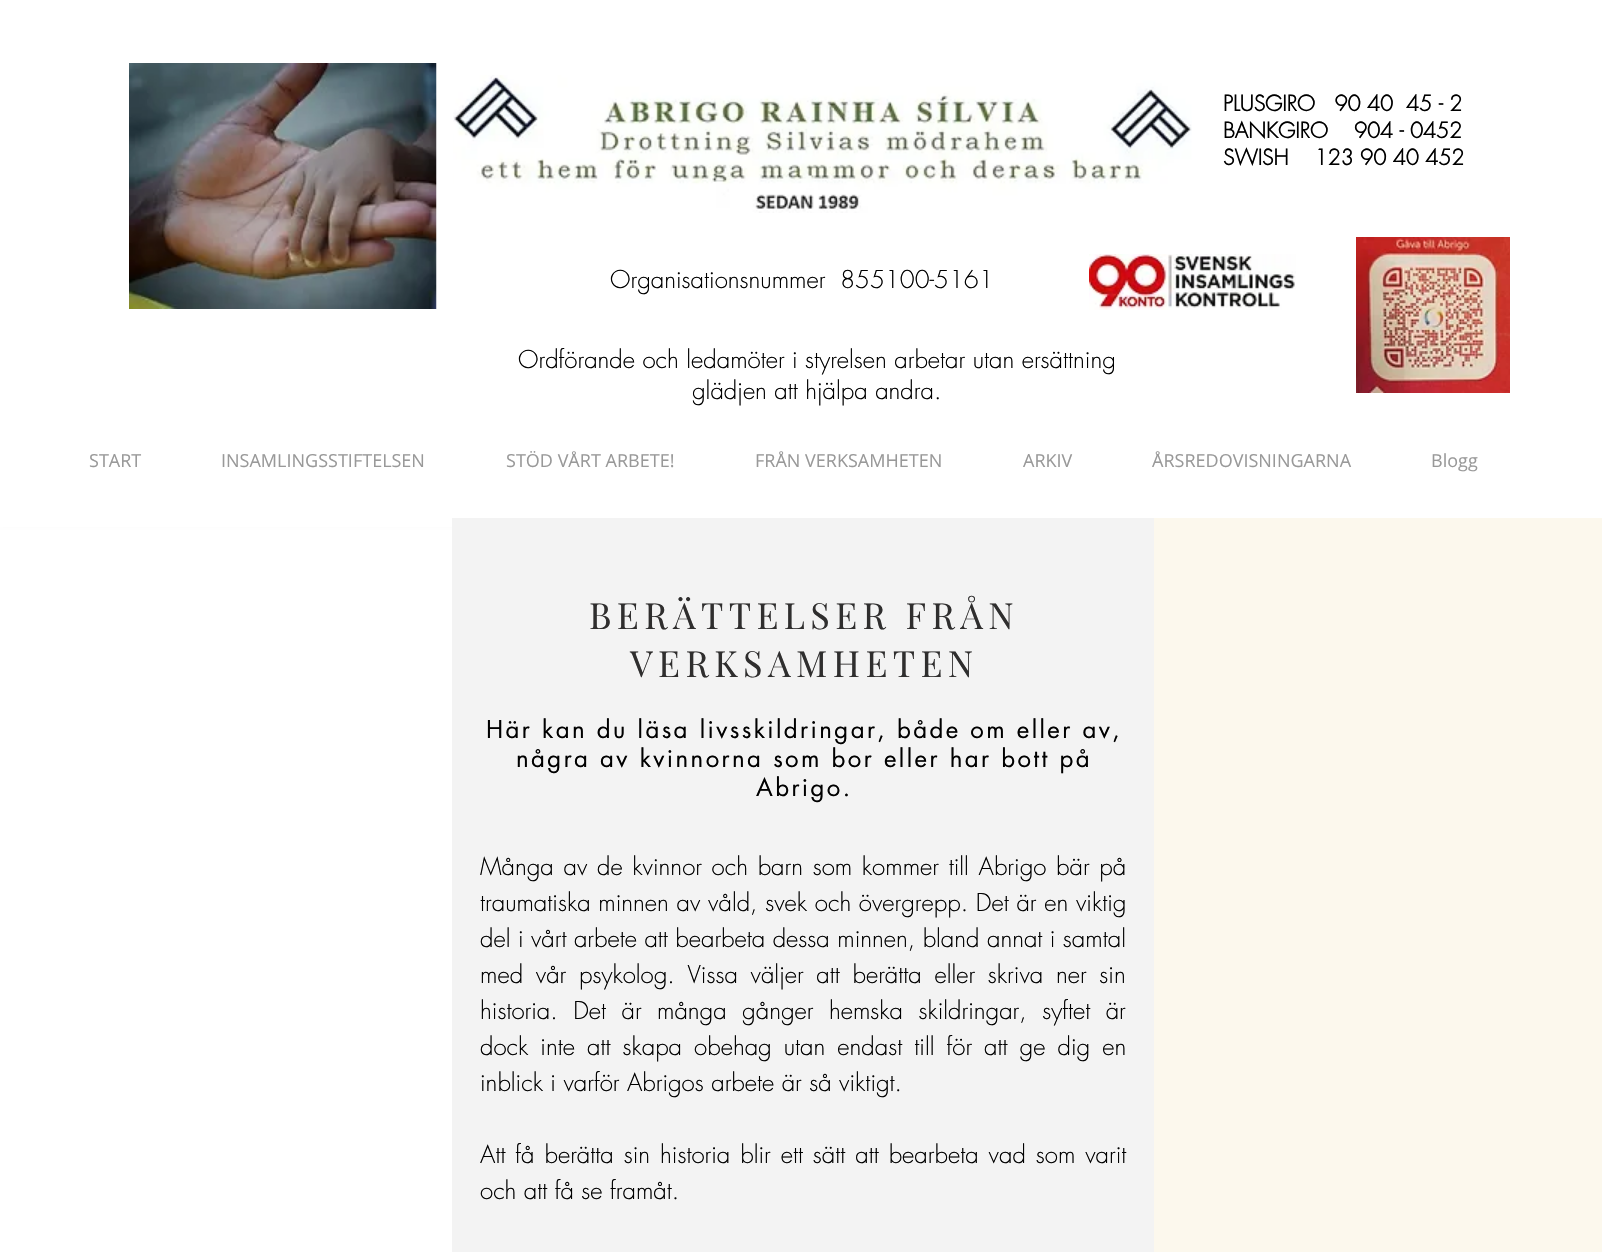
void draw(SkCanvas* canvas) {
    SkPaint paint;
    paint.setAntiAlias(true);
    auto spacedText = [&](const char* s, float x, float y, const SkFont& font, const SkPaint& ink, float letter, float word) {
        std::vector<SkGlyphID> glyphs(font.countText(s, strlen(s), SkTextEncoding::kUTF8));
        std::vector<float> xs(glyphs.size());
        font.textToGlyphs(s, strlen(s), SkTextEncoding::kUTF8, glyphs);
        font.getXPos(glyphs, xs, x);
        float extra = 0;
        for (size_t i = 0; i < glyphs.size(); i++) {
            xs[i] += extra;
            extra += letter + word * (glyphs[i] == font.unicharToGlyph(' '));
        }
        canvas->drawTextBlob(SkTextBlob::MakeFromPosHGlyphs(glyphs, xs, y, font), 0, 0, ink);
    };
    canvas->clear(0xFFFFFFFF);
    canvas->save();
    canvas->clipPath(SkPathBuilder(SkPathFillType::kEvenOdd).moveTo(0, 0).lineTo(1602, 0).lineTo(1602, 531).lineTo(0, 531).close().moveTo(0, 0).lineTo(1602, 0).lineTo(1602, 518).lineTo(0, 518).close().detach(), true);
    paint.setColor(0xB3000000);
    paint.setMaskFilter(SkMaskFilter::MakeBlur(kNormal_SkBlurStyle, 4));
    canvas->drawRect(SkRect::MakeXYWH(0, 0, 1602, 518), paint);
    paint.setMaskFilter(nullptr);
    canvas->restore();
    paint.setColor(0x99FFFFFF);
    canvas->drawRect(SkRect::MakeXYWH(0, 517, 1602, 1), paint);
    canvas->drawImageRect(SkImages::DeferredFromEncodedData(SkData::MakeFromFileName("img1.png")), SkRect::MakeXYWH(129, 63, 308, 246), SkSamplingOptions());
    canvas->drawImageRect(SkImages::DeferredFromEncodedData(SkData::MakeFromFileName("img2.png")), SkRect::MakeXYWH(453, 75, 739, 138), SkSamplingOptions());
    SkFont font1(fontMgr->matchFamilyStyle("futura", SkFontStyle::Bold()), 21);
    font1.setSubpixel(true);
    paint.setColor(0xFF000000);
    canvas->drawString("PLUSGIRO   90 40  45 - 2", 1223, 111, font1, paint);
    canvas->drawString("BANKGIRO    904 - 0452", 1223, 138, font1, paint);
    canvas->drawString("SWISH    123 90 40 452", 1223, 165, font1, paint);
    SkFont font2(fontMgr->matchFamilyStyle("futura", SkFontStyle(300, SkFontStyle::kNormal_Width, SkFontStyle::kUpright_Slant)), 24);
    font2.setSubpixel(true);
    canvas->drawString("Organisationsnummer  855100-5161", 610, 288, font2, paint);
    canvas->drawImageRect(SkImages::DeferredFromEncodedData(SkData::MakeFromFileName("img3.png")), SkRect::MakeXYWH(1089, 254, 207, 56), SkSamplingOptions());
    canvas->drawImageRect(SkImages::DeferredFromEncodedData(SkData::MakeFromFileName("img4.png")), SkRect::MakeXYWH(1356, 237, 154, 156), SkSamplingOptions());
    canvas->drawString("Ordförande och ledamöter i styrelsen arbetar utan ersättning", 518, 368, font2, paint);
    canvas->drawString("glädjen att hjälpa andra.", 692, 399, font2, paint);
    SkFont font3(fontMgr->matchFamilyStyle("Open Sans", SkFontStyle::Normal()), 18);
    font3.setSubpixel(true);
    paint.setColor(0xFF999999);
    canvas->drawString("START", 89, 467, font3, paint);
    canvas->drawString("INSAMLINGSSTIFTELSEN", 221, 467, font3, paint);
    canvas->drawString("STÖD VÅRT ARBETE!", 506, 467, font3, paint);
    canvas->drawString("FRÅN VERKSAMHETEN", 755, 467, font3, paint);
    canvas->drawString("ARKIV", 1023, 467, font3, paint);
    canvas->drawString("ÅRSREDOVISNINGARNA", 1152, 467, font3, paint);
    canvas->drawString("Blogg", 1431, 467, font3, paint);
    paint.setColor(0xFFFFFFFF);
    canvas->drawRect(SkRect::MakeXYWH(0, 518, 452, 9), paint);
    paint.setColor(0xFFF3F3F3);
    canvas->drawRect(SkRect::MakeXYWH(452, 518, 702, 734), paint);
    SkFont font4(fontMgr->matchFamilyStyle("Playfair Display", SkFontStyle::Normal()), 36);
    font4.setSubpixel(true);
    paint.setColor(0xFF2F2E2E);
    spacedText("BERÄTTELSER FRÅN", 589, 629, font4, paint, 5.4f, 0);
    spacedText("VERKSAMHETEN", 630, 677, font4, paint, 5.4f, 0);
    SkFont font5(fontMgr->matchFamilyStyle("futura", SkFontStyle::Normal()), 24);
    font5.setSubpixel(true);
    paint.setColor(0xFF000000);
    spacedText("Här kan du läsa livsskildringar, både om eller av,", 486, 738, font5, paint, 2.4f, 0);
    spacedText("några av kvinnorna som bor eller har bott på", 516, 767, font5, paint, 2.4f, 0);
    spacedText("Abrigo.", 756, 796, font5, paint, 2.4f, 0);
    spacedText("Många av de kvinnor och barn som kommer till Abrigo bär på", 480, 875, font2, paint, 0, 2.25f);
    spacedText("traumatiska minnen av våld, svek och övergrepp. Det är en viktig", 480, 911, font2, paint, 0, 0.25f);
    canvas->drawString("del i vårt arbete att bearbeta dessa minnen, bland annat i samtal", 480, 947, font2, paint);
    spacedText("med vår psykolog. Vissa väljer att berätta eller skriva ner sin", 480, 983, font2, paint, 0, 5.25f);
    spacedText("historia. Det är många gånger hemska skildringar, syftet är", 480, 1019, font2, paint, 0, 8);
    spacedText("dock inte att skapa obehag utan endast till för att ge dig en", 480, 1055, font2, paint, 0, 4.6f);
    canvas->drawString("inblick i varför Abrigos arbete är så viktigt.", 480, 1091, font2, paint);
    spacedText("Att få berätta sin historia blir ett sätt att bearbeta vad som varit", 480, 1163, font2, paint, 0, 2.5f);
    canvas->drawString("och att få se framåt.", 480, 1199, font2, paint);
    paint.setColor(0xFFFCF8ED);
    canvas->drawRect(SkRect::MakeXYWH(1154, 518, 448, 734), paint);
}
